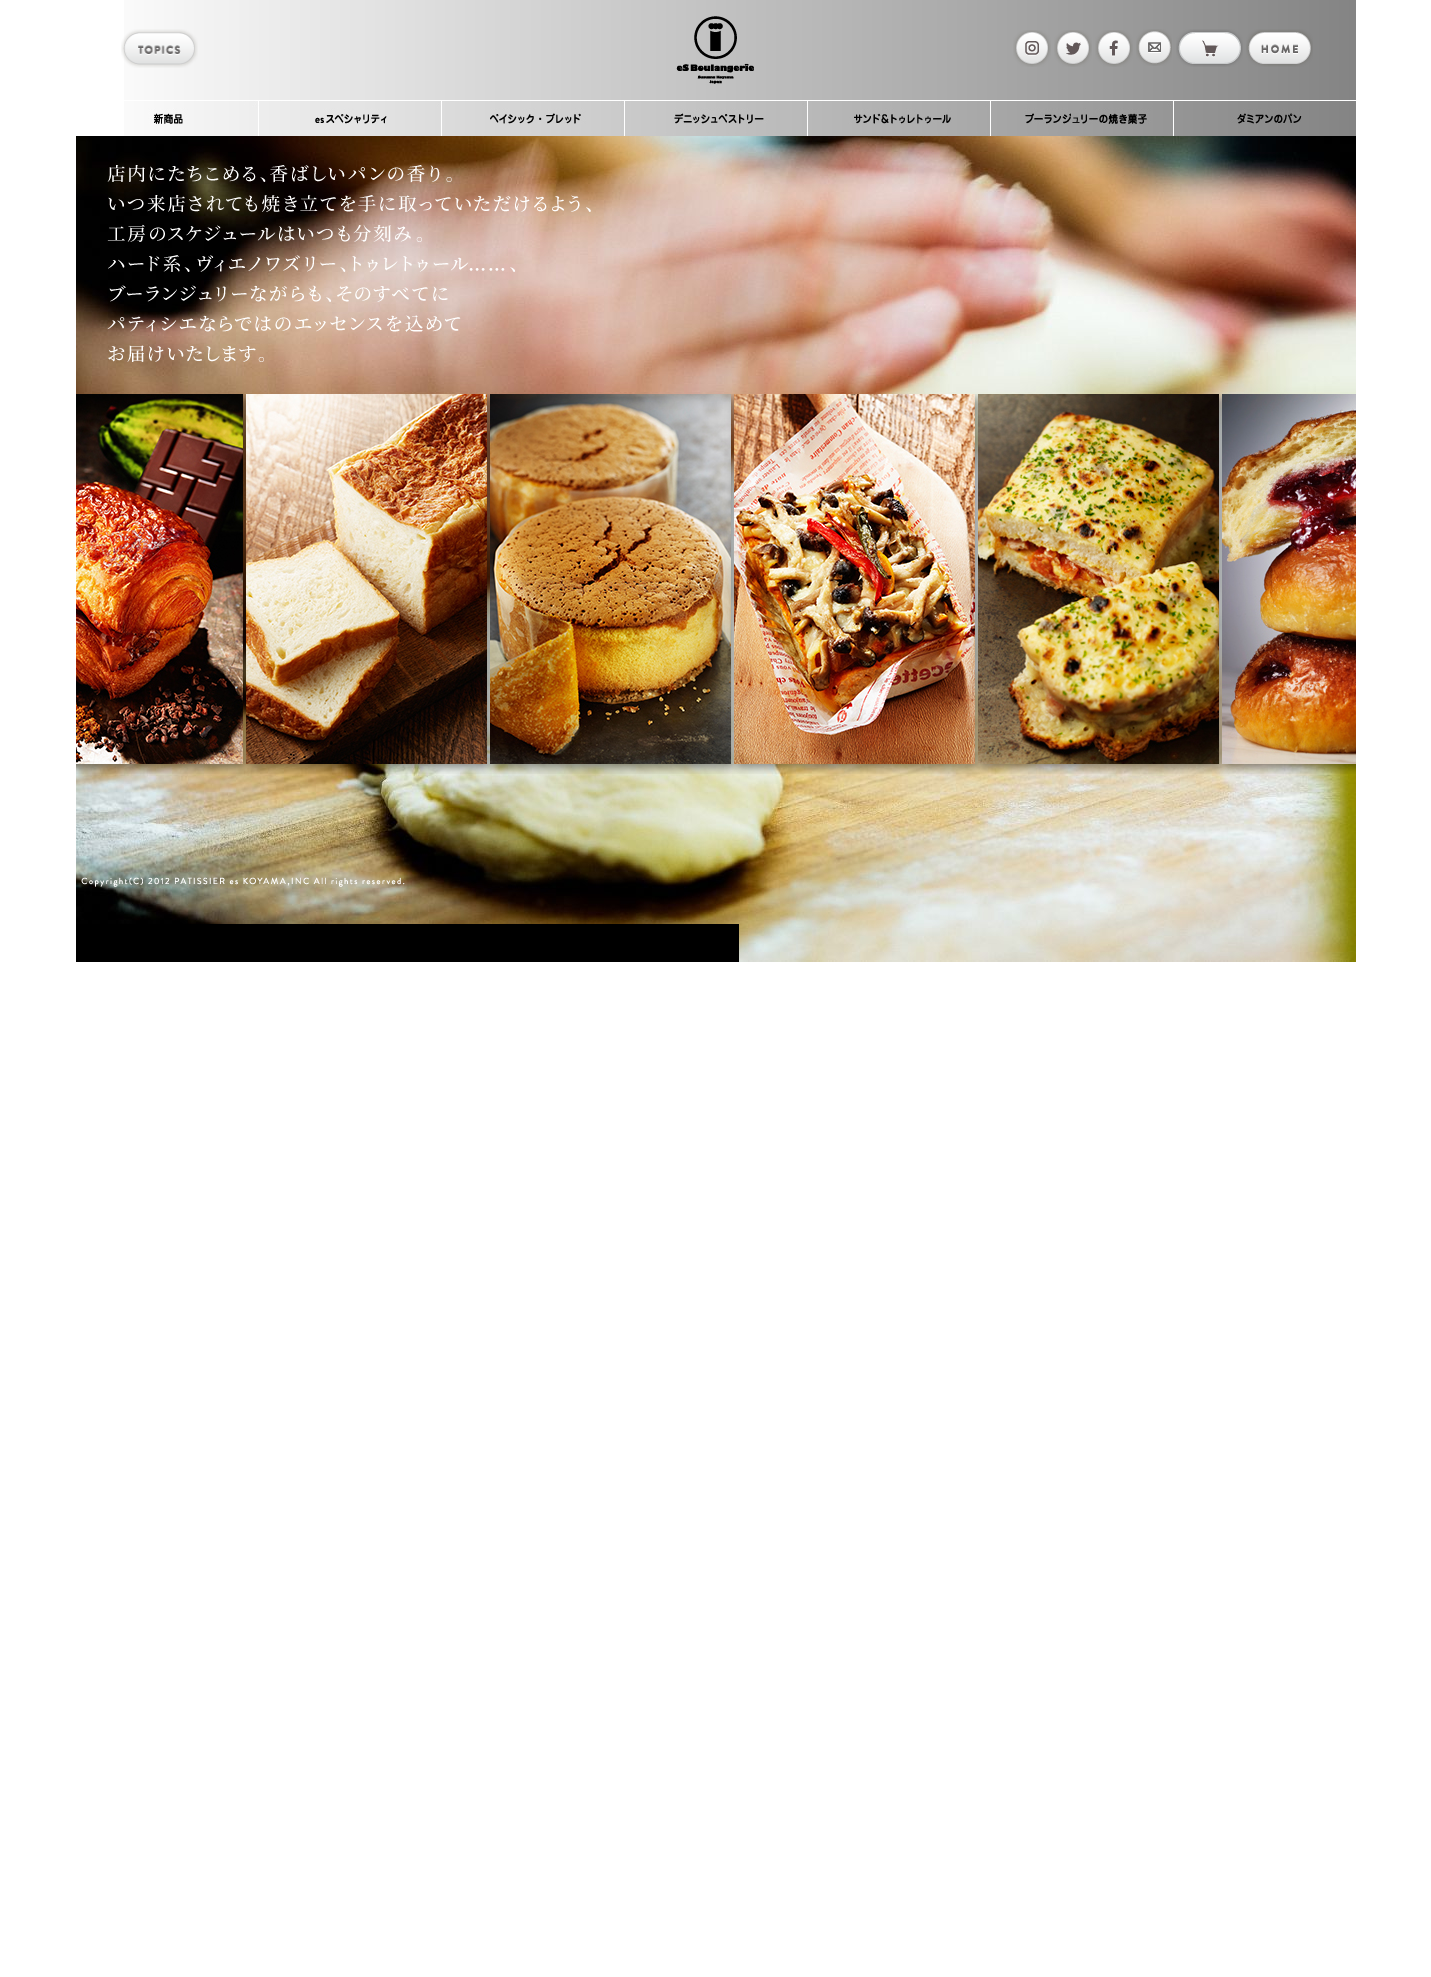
void draw(SkCanvas* canvas) {
    SkPaint paint;
    paint.setAntiAlias(true);
    canvas->clear(0xFFFFFFFF);
    canvas->drawImageRect(SkImages::DeferredFromEncodedData(SkData::MakeFromFileName("img1.png")), SkRect::MakeXYWH(124, 0, 1232, 136), SkSamplingOptions());
    canvas->drawImageRect(SkImages::DeferredFromEncodedData(SkData::MakeFromFileName("img2.png")), SkRect::MakeXYWH(121, 29, 77, 39), SkSamplingOptions());
    canvas->drawImageRect(SkImages::DeferredFromEncodedData(SkData::MakeFromFileName("img3.png")), SkRect::MakeXYWH(676, 16, 78, 68), SkSamplingOptions());
    canvas->drawImageRect(SkImages::DeferredFromEncodedData(SkData::MakeFromFileName("img4.png")), SkRect::MakeXYWH(1013, 30, 38, 37), SkSamplingOptions());
    canvas->drawImageRect(SkImages::DeferredFromEncodedData(SkData::MakeFromFileName("img5.png")), SkRect::MakeXYWH(1054, 30, 38, 37), SkSamplingOptions());
    canvas->drawImageRect(SkImages::DeferredFromEncodedData(SkData::MakeFromFileName("img6.png")), SkRect::MakeXYWH(1095, 30, 38, 37), SkSamplingOptions());
    canvas->drawImageRect(SkImages::DeferredFromEncodedData(SkData::MakeFromFileName("img7.png")), SkRect::MakeXYWH(1136, 29, 36, 37), SkSamplingOptions());
    canvas->drawImageRect(SkImages::DeferredFromEncodedData(SkData::MakeFromFileName("img8.png")), SkRect::MakeXYWH(1176, 29, 67, 38), SkSamplingOptions());
    canvas->drawImageRect(SkImages::DeferredFromEncodedData(SkData::MakeFromFileName("img9.png")), SkRect::MakeXYWH(1246, 29, 67, 38), SkSamplingOptions());
    canvas->drawImageRect(SkImages::DeferredFromEncodedData(SkData::MakeFromFileName("img10.png")), SkRect::MakeXYWH(124, 100, 135, 36), SkSamplingOptions());
    canvas->drawImageRect(SkImages::DeferredFromEncodedData(SkData::MakeFromFileName("img11.png")), SkRect::MakeXYWH(259, 100, 183, 36), SkSamplingOptions());
    canvas->drawImageRect(SkImages::DeferredFromEncodedData(SkData::MakeFromFileName("img12.png")), SkRect::MakeXYWH(442, 100, 183, 36), SkSamplingOptions());
    canvas->drawImageRect(SkImages::DeferredFromEncodedData(SkData::MakeFromFileName("img13.png")), SkRect::MakeXYWH(625, 100, 183, 36), SkSamplingOptions());
    canvas->drawImageRect(SkImages::DeferredFromEncodedData(SkData::MakeFromFileName("img14.png")), SkRect::MakeXYWH(808, 100, 183, 36), SkSamplingOptions());
    canvas->drawImageRect(SkImages::DeferredFromEncodedData(SkData::MakeFromFileName("img15.png")), SkRect::MakeXYWH(991, 100, 183, 36), SkSamplingOptions());
    canvas->drawImageRect(SkImages::DeferredFromEncodedData(SkData::MakeFromFileName("img16.png")), SkRect::MakeXYWH(1174, 100, 182, 24), SkSamplingOptions());
    canvas->drawImageRect(SkImages::DeferredFromEncodedData(SkData::MakeFromFileName("img17.png")), SkRect::MakeXYWH(76, 136, 1280, 826), SkSamplingOptions());
    canvas->drawImageRect(SkImages::DeferredFromEncodedData(SkData::MakeFromFileName("img18.png")), SkRect::MakeXYWH(107, 165, 484, 197), SkSamplingOptions());
    canvas->save();
    canvas->clipRect(SkRect::MakeXYWH(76, 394, 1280, 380));
    paint.setColor(0x66000000);
    paint.setMaskFilter(SkMaskFilter::MakeBlur(kNormal_SkBlurStyle, 4));
    canvas->drawRect(SkRect::MakeXYWH(4, 398, 241, 370), paint);
    paint.setMaskFilter(nullptr);
    canvas->restore();
    canvas->drawImageRect(SkImages::DeferredFromEncodedData(SkData::MakeFromFileName("img19.png")), SkRect::MakeXYWH(76, 394, 167, 370), SkSamplingOptions());
    canvas->save();
    canvas->clipRect(SkRect::MakeXYWH(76, 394, 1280, 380));
    paint.setMaskFilter(SkMaskFilter::MakeBlur(kNormal_SkBlurStyle, 4));
    canvas->drawRect(SkRect::MakeXYWH(248, 398, 241, 370), paint);
    paint.setMaskFilter(nullptr);
    canvas->restore();
    canvas->drawImageRect(SkImages::DeferredFromEncodedData(SkData::MakeFromFileName("img20.png")), SkRect::MakeXYWH(246, 394, 241, 370), SkSamplingOptions());
    canvas->save();
    canvas->clipRect(SkRect::MakeXYWH(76, 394, 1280, 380));
    paint.setMaskFilter(SkMaskFilter::MakeBlur(kNormal_SkBlurStyle, 4));
    canvas->drawRect(SkRect::MakeXYWH(492, 398, 241, 370), paint);
    paint.setMaskFilter(nullptr);
    canvas->restore();
    canvas->drawImageRect(SkImages::DeferredFromEncodedData(SkData::MakeFromFileName("img21.png")), SkRect::MakeXYWH(490, 394, 241, 370), SkSamplingOptions());
    canvas->save();
    canvas->clipRect(SkRect::MakeXYWH(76, 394, 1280, 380));
    paint.setMaskFilter(SkMaskFilter::MakeBlur(kNormal_SkBlurStyle, 4));
    canvas->drawRect(SkRect::MakeXYWH(736, 398, 241, 370), paint);
    paint.setMaskFilter(nullptr);
    canvas->restore();
    canvas->drawImageRect(SkImages::DeferredFromEncodedData(SkData::MakeFromFileName("img22.png")), SkRect::MakeXYWH(734, 394, 241, 370), SkSamplingOptions());
    canvas->save();
    canvas->clipRect(SkRect::MakeXYWH(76, 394, 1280, 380));
    paint.setMaskFilter(SkMaskFilter::MakeBlur(kNormal_SkBlurStyle, 4));
    canvas->drawRect(SkRect::MakeXYWH(980, 398, 241, 370), paint);
    paint.setMaskFilter(nullptr);
    canvas->restore();
    canvas->drawImageRect(SkImages::DeferredFromEncodedData(SkData::MakeFromFileName("img23.png")), SkRect::MakeXYWH(978, 394, 241, 370), SkSamplingOptions());
    canvas->save();
    canvas->clipRect(SkRect::MakeXYWH(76, 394, 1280, 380));
    paint.setMaskFilter(SkMaskFilter::MakeBlur(kNormal_SkBlurStyle, 4));
    canvas->drawRect(SkRect::MakeXYWH(1224, 398, 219, 370), paint);
    paint.setMaskFilter(nullptr);
    canvas->restore();
    canvas->drawImageRect(SkImages::DeferredFromEncodedData(SkData::MakeFromFileName("img24.png")), SkRect::MakeXYWH(1222, 394, 134, 370), SkSamplingOptions());
    canvas->drawImageRect(SkImages::DeferredFromEncodedData(SkData::MakeFromFileName("img25.png")), SkRect::MakeXYWH(81, 877, 324, 10), SkSamplingOptions());
    paint.setColor(0xFF000000);
    canvas->drawRect(SkRect::MakeXYWH(76, 924, 663, 38), paint);
}
